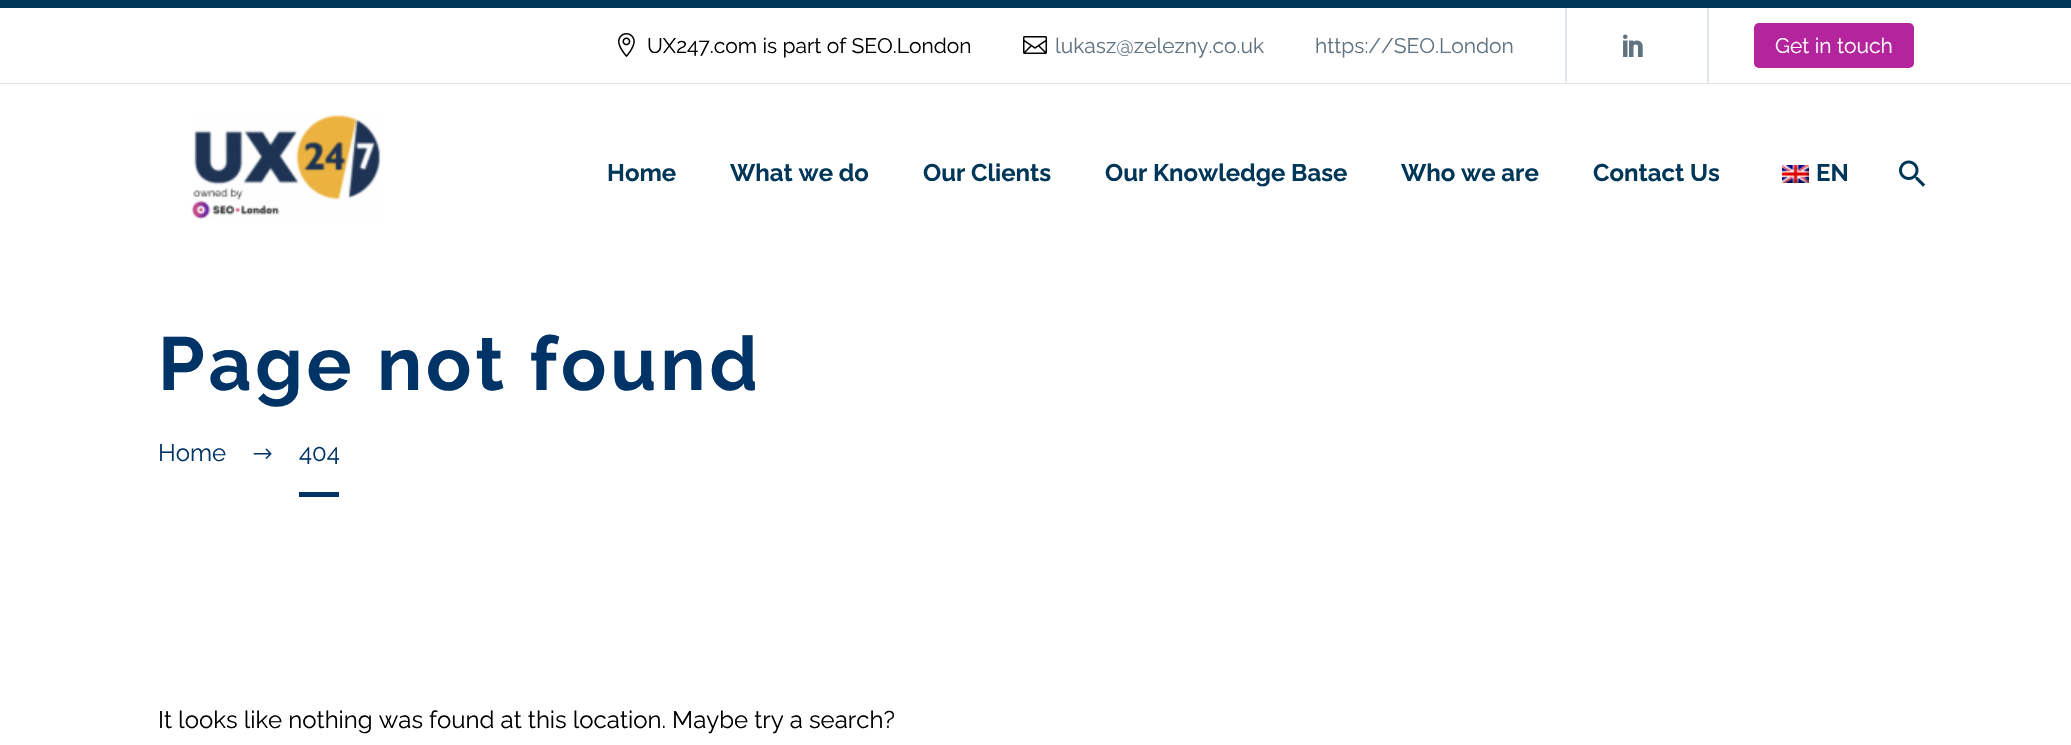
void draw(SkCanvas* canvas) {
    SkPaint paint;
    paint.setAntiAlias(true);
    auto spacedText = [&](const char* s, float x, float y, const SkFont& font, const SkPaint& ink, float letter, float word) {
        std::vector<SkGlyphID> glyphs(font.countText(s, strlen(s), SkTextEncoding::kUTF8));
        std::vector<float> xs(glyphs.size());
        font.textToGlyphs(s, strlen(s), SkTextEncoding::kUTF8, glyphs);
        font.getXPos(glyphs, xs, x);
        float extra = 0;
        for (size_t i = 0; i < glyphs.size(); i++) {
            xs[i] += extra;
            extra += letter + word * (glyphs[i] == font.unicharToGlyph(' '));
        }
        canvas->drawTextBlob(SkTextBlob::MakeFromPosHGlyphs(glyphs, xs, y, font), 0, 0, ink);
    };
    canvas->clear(0xFFFFFFFF);
    paint.setColor(0xFF003759);
    canvas->drawRect(SkRect::MakeXYWH(0, 0, 2071, 8), paint);
    paint.setColor(0xFFDFE5E8);
    canvas->drawRect(SkRect::MakeXYWH(0, 83, 2071, 1), paint);
    canvas->drawImageRect(SkImages::DeferredFromEncodedData(SkData::MakeFromFileName("img1.png")), SkRect::MakeXYWH(618, 33, 17, 24), SkSamplingOptions());
    SkFont font1(fontMgr->matchFamilyStyle("Raleway", SkFontStyle::Normal()), 21);
    font1.setSubpixel(true);
    paint.setColor(0xFF000000);
    canvas->drawString("UX247.com is part of SEO.London", 647, 53, font1, paint);
    canvas->drawImageRect(SkImages::DeferredFromEncodedData(SkData::MakeFromFileName("img2.png")), SkRect::MakeXYWH(1023, 36, 24, 18), SkSamplingOptions());
    paint.setColor(0xFF5F727F);
    canvas->drawString("lukasz@zelezny.co.uk", 1055, 53, font1, paint);
    canvas->drawString("https://SEO.London", 1315, 53, font1, paint);
    paint.setColor(0xFFDFE5E8);
    canvas->drawRect(SkRect::MakeXYWH(1565, 8, 2, 75), paint);
    canvas->drawImageRect(SkImages::DeferredFromEncodedData(SkData::MakeFromFileName("img3.png")), SkRect::MakeXYWH(1623, 34, 20, 23), SkSamplingOptions());
    canvas->drawRect(SkRect::MakeXYWH(1707, 8, 2, 75), paint);
    paint.setColor(0xFFB4249C);
    canvas->drawRoundRect(SkRect::MakeXYWH(1754, 23, 160, 45), 5, 5, paint);
    paint.setColor(0xFFFFFFFF);
    canvas->drawString("Get in touch", 1775, 53, font1, paint);
    canvas->drawImageRect(SkImages::DeferredFromEncodedData(SkData::MakeFromFileName("img4.png")), SkRect::MakeXYWH(191, 114, 190, 106), SkSamplingOptions());
    SkFont font2(fontMgr->matchFamilyStyle("Raleway", SkFontStyle::Bold()), 24);
    font2.setSubpixel(true);
    paint.setColor(0xFF003759);
    canvas->drawString("Home", 607, 181, font2, paint);
    canvas->drawString("What we do", 730, 181, font2, paint);
    canvas->drawString("Our Clients", 923, 181, font2, paint);
    canvas->drawString("Our Knowledge Base", 1105, 181, font2, paint);
    canvas->drawString("Who we are", 1401, 181, font2, paint);
    canvas->drawString("Contact Us", 1593, 181, font2, paint);
    canvas->drawImageRect(SkImages::DeferredFromEncodedData(SkData::MakeFromFileName("img5.png")), SkRect::MakeXYWH(1782, 165, 27, 18), SkSamplingOptions());
    canvas->drawString("EN", 1816, 181, font2, paint);
    canvas->drawImageRect(SkImages::DeferredFromEncodedData(SkData::MakeFromFileName("img6.png")), SkRect::MakeXYWH(1899, 160, 27, 27), SkSamplingOptions());
    SkFont font3(fontMgr->matchFamilyStyle("Raleway", SkFontStyle::Bold()), 75);
    font3.setSubpixel(true);
    paint.setColor(0xFF003366);
    spacedText("Page not found", 158, 390, font3, paint, 3.75f, 0);
    SkFont font4(fontMgr->matchFamilyStyle("Raleway", SkFontStyle::Normal()), 24);
    font4.setSubpixel(true);
    canvas->drawString("Home", 158, 461, font4, paint);
    canvas->drawImageRect(SkImages::DeferredFromEncodedData(SkData::MakeFromFileName("img7.png")), SkRect::MakeXYWH(253, 448, 19, 11), SkSamplingOptions());
    canvas->drawRect(SkRect::MakeXYWH(299, 492, 40, 5), paint);
    canvas->drawString("404", 299, 461, font4, paint);
    paint.setColor(0xFF000000);
    canvas->drawString("It looks like nothing was found at this location. Maybe try a search?", 158, 728, font4, paint);
}
